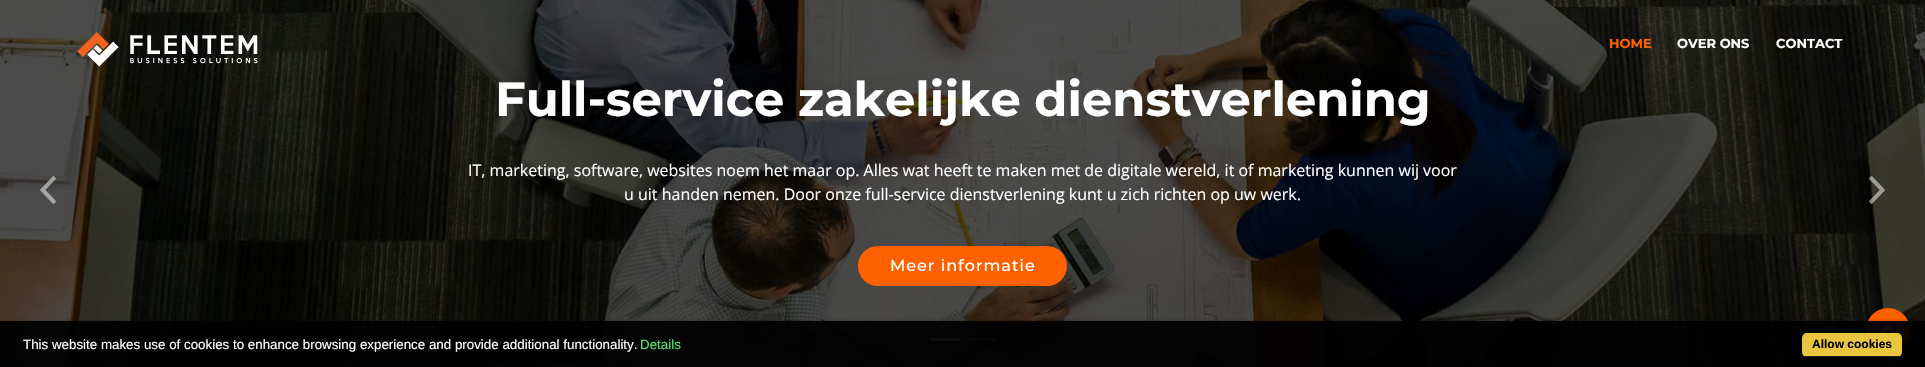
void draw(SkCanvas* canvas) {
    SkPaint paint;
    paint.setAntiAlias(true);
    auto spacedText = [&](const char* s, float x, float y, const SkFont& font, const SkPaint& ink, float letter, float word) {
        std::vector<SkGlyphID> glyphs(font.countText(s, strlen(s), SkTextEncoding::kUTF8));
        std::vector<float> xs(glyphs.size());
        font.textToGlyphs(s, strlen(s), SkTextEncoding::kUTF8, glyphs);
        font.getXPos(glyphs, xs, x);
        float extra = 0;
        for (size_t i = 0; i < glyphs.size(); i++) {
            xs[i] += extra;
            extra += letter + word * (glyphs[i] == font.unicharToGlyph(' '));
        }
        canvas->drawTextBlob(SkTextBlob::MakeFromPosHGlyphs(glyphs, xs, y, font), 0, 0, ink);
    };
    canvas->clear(0xFFFFFFFF);
    canvas->drawImageRect(SkImages::DeferredFromEncodedData(SkData::MakeFromFileName("img3.png")), SkRect::MakeXYWH(0, 0, 1925, 367), SkSamplingOptions());
    canvas->drawImageRect(SkImages::DeferredFromEncodedData(SkData::MakeFromFileName("img1.png")), SkRect::MakeXYWH(77, 32, 181, 35), SkSamplingOptions());
    SkFont font1(fontMgr->matchFamilyStyle("Montserrat", SkFontStyle::Bold()), 13);
    font1.setSubpixel(true);
    paint.setColor(0xFFFF6000);
    canvas->drawString("HOME", 1609, 48, font1, paint);
    paint.setColor(0xFFFFFFFF);
    canvas->drawString("OVER ONS", 1677, 48, font1, paint);
    canvas->drawString("CONTACT", 1776, 48, font1, paint);
    canvas->drawImageRect(SkImages::DeferredFromEncodedData(SkData::MakeFromFileName("img2.png")), SkRect::MakeXYWH(40, 176, 16, 28), SkSamplingOptions());
    SkFont font2(fontMgr->matchFamilyStyle("Montserrat", SkFontStyle::Bold()), 48);
    font2.setSubpixel(true);
    canvas->drawString("Full-service zakelijke dienstverlening", 495, 116, font2, paint);
    SkFont font3(fontMgr->matchFamilyStyle("Open Sans", SkFontStyle::Normal()), 16);
    font3.setSubpixel(true);
    canvas->drawString("IT, marketing, software, websites noem het maar op. Alles wat heeft te maken met de digitale wereld, it of marketing kunnen wij voor", 468, 176, font3, paint);
    canvas->drawString("u uit handen nemen. Door onze full-service dienstverlening kunt u zich richten op uw werk.", 624, 200, font3, paint);
    paint.setColor(0xFFFF6000);
    canvas->drawRoundRect(SkRect::MakeXYWH(858, 246, 209, 40), 20, 20, paint);
    SkFont font4(fontMgr->matchFamilyStyle("Montserrat", SkFontStyle(500, SkFontStyle::kNormal_Width, SkFontStyle::kUpright_Slant)), 16);
    font4.setSubpixel(true);
    paint.setColor(0xFFFFFFFF);
    spacedText("Meer informatie", 890, 271, font4, paint, 1, 0);
    canvas->drawImageRect(SkImages::DeferredFromEncodedData(SkData::MakeFromFileName("img4.png")), SkRect::MakeXYWH(1869, 176, 16, 28), SkSamplingOptions());
    canvas->drawRect(SkRect::MakeXYWH(930, 338, 30, 3), paint);
    paint.setColor(0x80FFFFFF);
    canvas->drawRect(SkRect::MakeXYWH(966, 338, 30, 3), paint);
    paint.setColor(0xFFFF6000);
    canvas->drawCircle(1888, 330, 22, paint);
    canvas->drawImageRect(SkImages::DeferredFromEncodedData(SkData::MakeFromFileName("img5.png")), SkRect::MakeXYWH(1880, 324, 16, 9), SkSamplingOptions());
    canvas->save();
    canvas->clipRect(SkRect::MakeXYWH(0, 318, 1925, 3));
    paint.setColor(0x99000000);
    paint.setMaskFilter(SkMaskFilter::MakeBlur(kNormal_SkBlurStyle, 2.5f));
    canvas->drawRect(SkRect::MakeXYWH(2, 323, 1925, 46), paint);
    paint.setMaskFilter(nullptr);
    canvas->restore();
    paint.setColor(0xF2000000);
    canvas->drawRect(SkRect::MakeXYWH(0, 321, 1925, 46), paint);
    SkFont font5(fontMgr->matchFamilyStyle("Liberation Sans", SkFontStyle::Normal()), 13.35f);
    font5.setSubpixel(true);
    paint.setColor(0xFFFFFFFF);
    canvas->drawString("This website makes use of cookies to enhance browsing experience and provide additional functionality.", 23, 349, font5, paint);
    paint.setColor(0xFF4BEC69);
    canvas->drawString("Details", 640, 349, font5, paint);
    paint.setColor(0xFFEAC53E);
    canvas->drawRoundRect(SkRect::MakeXYWH(1802, 333, 100, 24), 5, 5, paint);
    paint.setColor(0xFF222222);
    canvas->drawRect(SkRect::MakeXYWH(1805, 356, 95, 1), paint);
    SkFont font6(fontMgr->matchFamilyStyle("Liberation Sans", SkFontStyle::Bold()), 12);
    font6.setSubpixel(true);
    paint.setColor(0xFF000000);
    canvas->drawString("Allow cookies", 1812, 348, font6, paint);
}
